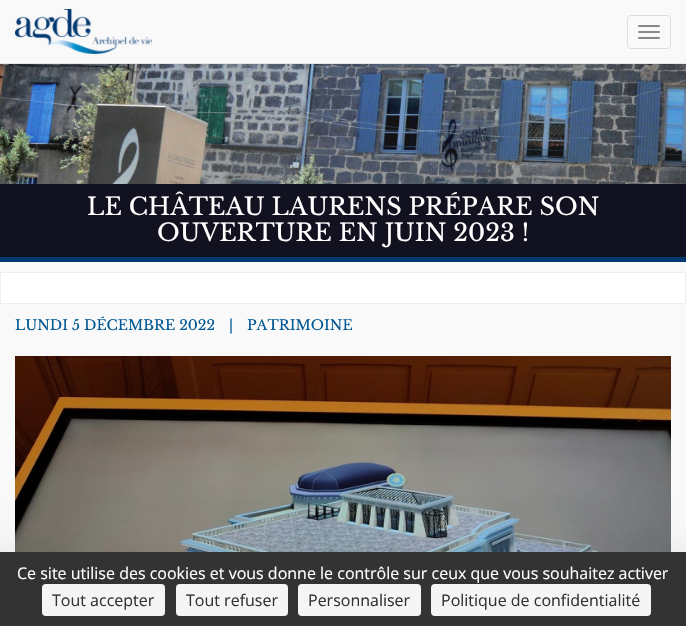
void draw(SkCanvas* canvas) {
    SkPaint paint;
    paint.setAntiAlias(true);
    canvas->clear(0xFFF9F9F9);
    paint.setColor(0xFFE7E7E7);
    canvas->drawRect(SkRect::MakeXYWH(0, 63, 686, 1), paint);
    canvas->drawImageRect(SkImages::DeferredFromEncodedData(SkData::MakeFromFileName("img1.png")), SkRect::MakeXYWH(15, 9, 137, 45), SkSamplingOptions());
    paint.setStyle(SkPaint::kStroke_Style);
    paint.setStrokeWidth(1);
    paint.setColor(0xFFDDDDDD);
    canvas->drawRoundRect(SkRect::MakeXYWH(627.5f, 15.5f, 43, 33), 3.5f, 3.5f, paint);
    paint.setStyle(SkPaint::kFill_Style);
    paint.setColor(0xFF888888);
    canvas->drawRoundRect(SkRect::MakeXYWH(638, 25, 22, 2), 1, 1, paint);
    canvas->drawRoundRect(SkRect::MakeXYWH(638, 31, 22, 2), 1, 1, paint);
    canvas->drawRoundRect(SkRect::MakeXYWH(638, 37, 22, 2), 1, 1, paint);
    canvas->drawImageRect(SkImages::DeferredFromEncodedData(SkData::MakeFromFileName("img2.png")), SkRect::MakeXYWH(0, 64, 686, 120), SkSamplingOptions());
    paint.setColor(0xFF111120);
    canvas->drawRect(SkRect::MakeXYWH(0, 184, 686, 73), paint);
    paint.setColor(0xFF003871);
    canvas->drawRect(SkRect::MakeXYWH(0, 257, 686, 5), paint);
    SkFont font1(fontMgr->matchFamilyStyle("Libre Baskerville", SkFontStyle::Normal()), 24);
    font1.setSubpixel(true);
    paint.setColor(0xFFFFFFFF);
    canvas->drawString("LE CHÂTEAU LAURENS PRÉPARE SON", 87, 215, font1, paint);
    canvas->drawString("OUVERTURE EN JUIN 2023 !", 157, 241, font1, paint);
    canvas->drawRect(SkRect::MakeXYWH(0.5f, 272.5f, 685, 31), paint);
    paint.setStyle(SkPaint::kStroke_Style);
    paint.setColor(0xFFEEEEEE);
    canvas->drawRect(SkRect::MakeXYWH(0.5f, 272.5f, 685, 31), paint);
    SkFont font2(fontMgr->matchFamilyStyle("Libre Baskerville", SkFontStyle::Normal()), 14);
    font2.setSubpixel(true);
    paint.setStyle(SkPaint::kFill_Style);
    paint.setColor(0xFF005995);
    canvas->drawString("LUNDI 5 DÉCEMBRE 2022", 15, 330, font2, paint);
    canvas->drawString("|", 229, 330, font2, paint);
    canvas->drawString("PATRIMOINE", 247, 330, font2, paint);
    canvas->drawImageRect(SkImages::DeferredFromEncodedData(SkData::MakeFromFileName("img3.png")), SkRect::MakeXYWH(15, 356, 656, 196), SkSamplingOptions());
    paint.setColor(0x40000000);
    paint.setMaskFilter(SkMaskFilter::MakeBlur(kNormal_SkBlurStyle, 30));
    canvas->drawRect(SkRect::MakeXYWH(0, 572, 686, 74), paint);
    paint.setMaskFilter(nullptr);
    paint.setColor(0xFF333333);
    canvas->drawRect(SkRect::MakeXYWH(0, 552, 686, 74), paint);
    SkFont font3(fontMgr->matchFamilyStyle("Open Sans", SkFontStyle::Normal()), 16);
    font3.setSubpixel(true);
    paint.setColor(0xFFFFFFFF);
    canvas->drawString("Ce site utilise des cookies et vous donne le contrôle sur ceux que vous souhaitez activer", 17, 579, font3, paint);
    paint.setColor(0xFFF5F5F5);
    canvas->drawRoundRect(SkRect::MakeXYWH(42, 584, 123, 32), 4, 4, paint);
    paint.setColor(0xFF333333);
    canvas->drawString("Tout accepter", 52, 606, font3, paint);
    paint.setColor(0xFFF5F5F5);
    canvas->drawRoundRect(SkRect::MakeXYWH(176, 584, 112, 32), 4, 4, paint);
    paint.setColor(0xFF333333);
    canvas->drawString("Tout refuser", 186, 606, font3, paint);
    paint.setColor(0xFFF5F5F5);
    canvas->drawRoundRect(SkRect::MakeXYWH(298, 584, 123, 32), 4, 4, paint);
    paint.setColor(0xFF333333);
    canvas->drawString("Personnaliser", 308, 606, font3, paint);
    paint.setColor(0xFFF5F5F5);
    canvas->drawRoundRect(SkRect::MakeXYWH(431, 584, 220, 32), 4, 4, paint);
    paint.setColor(0xFF333333);
    canvas->drawString("Politique de confidentialité", 441, 606, font3, paint);
}
